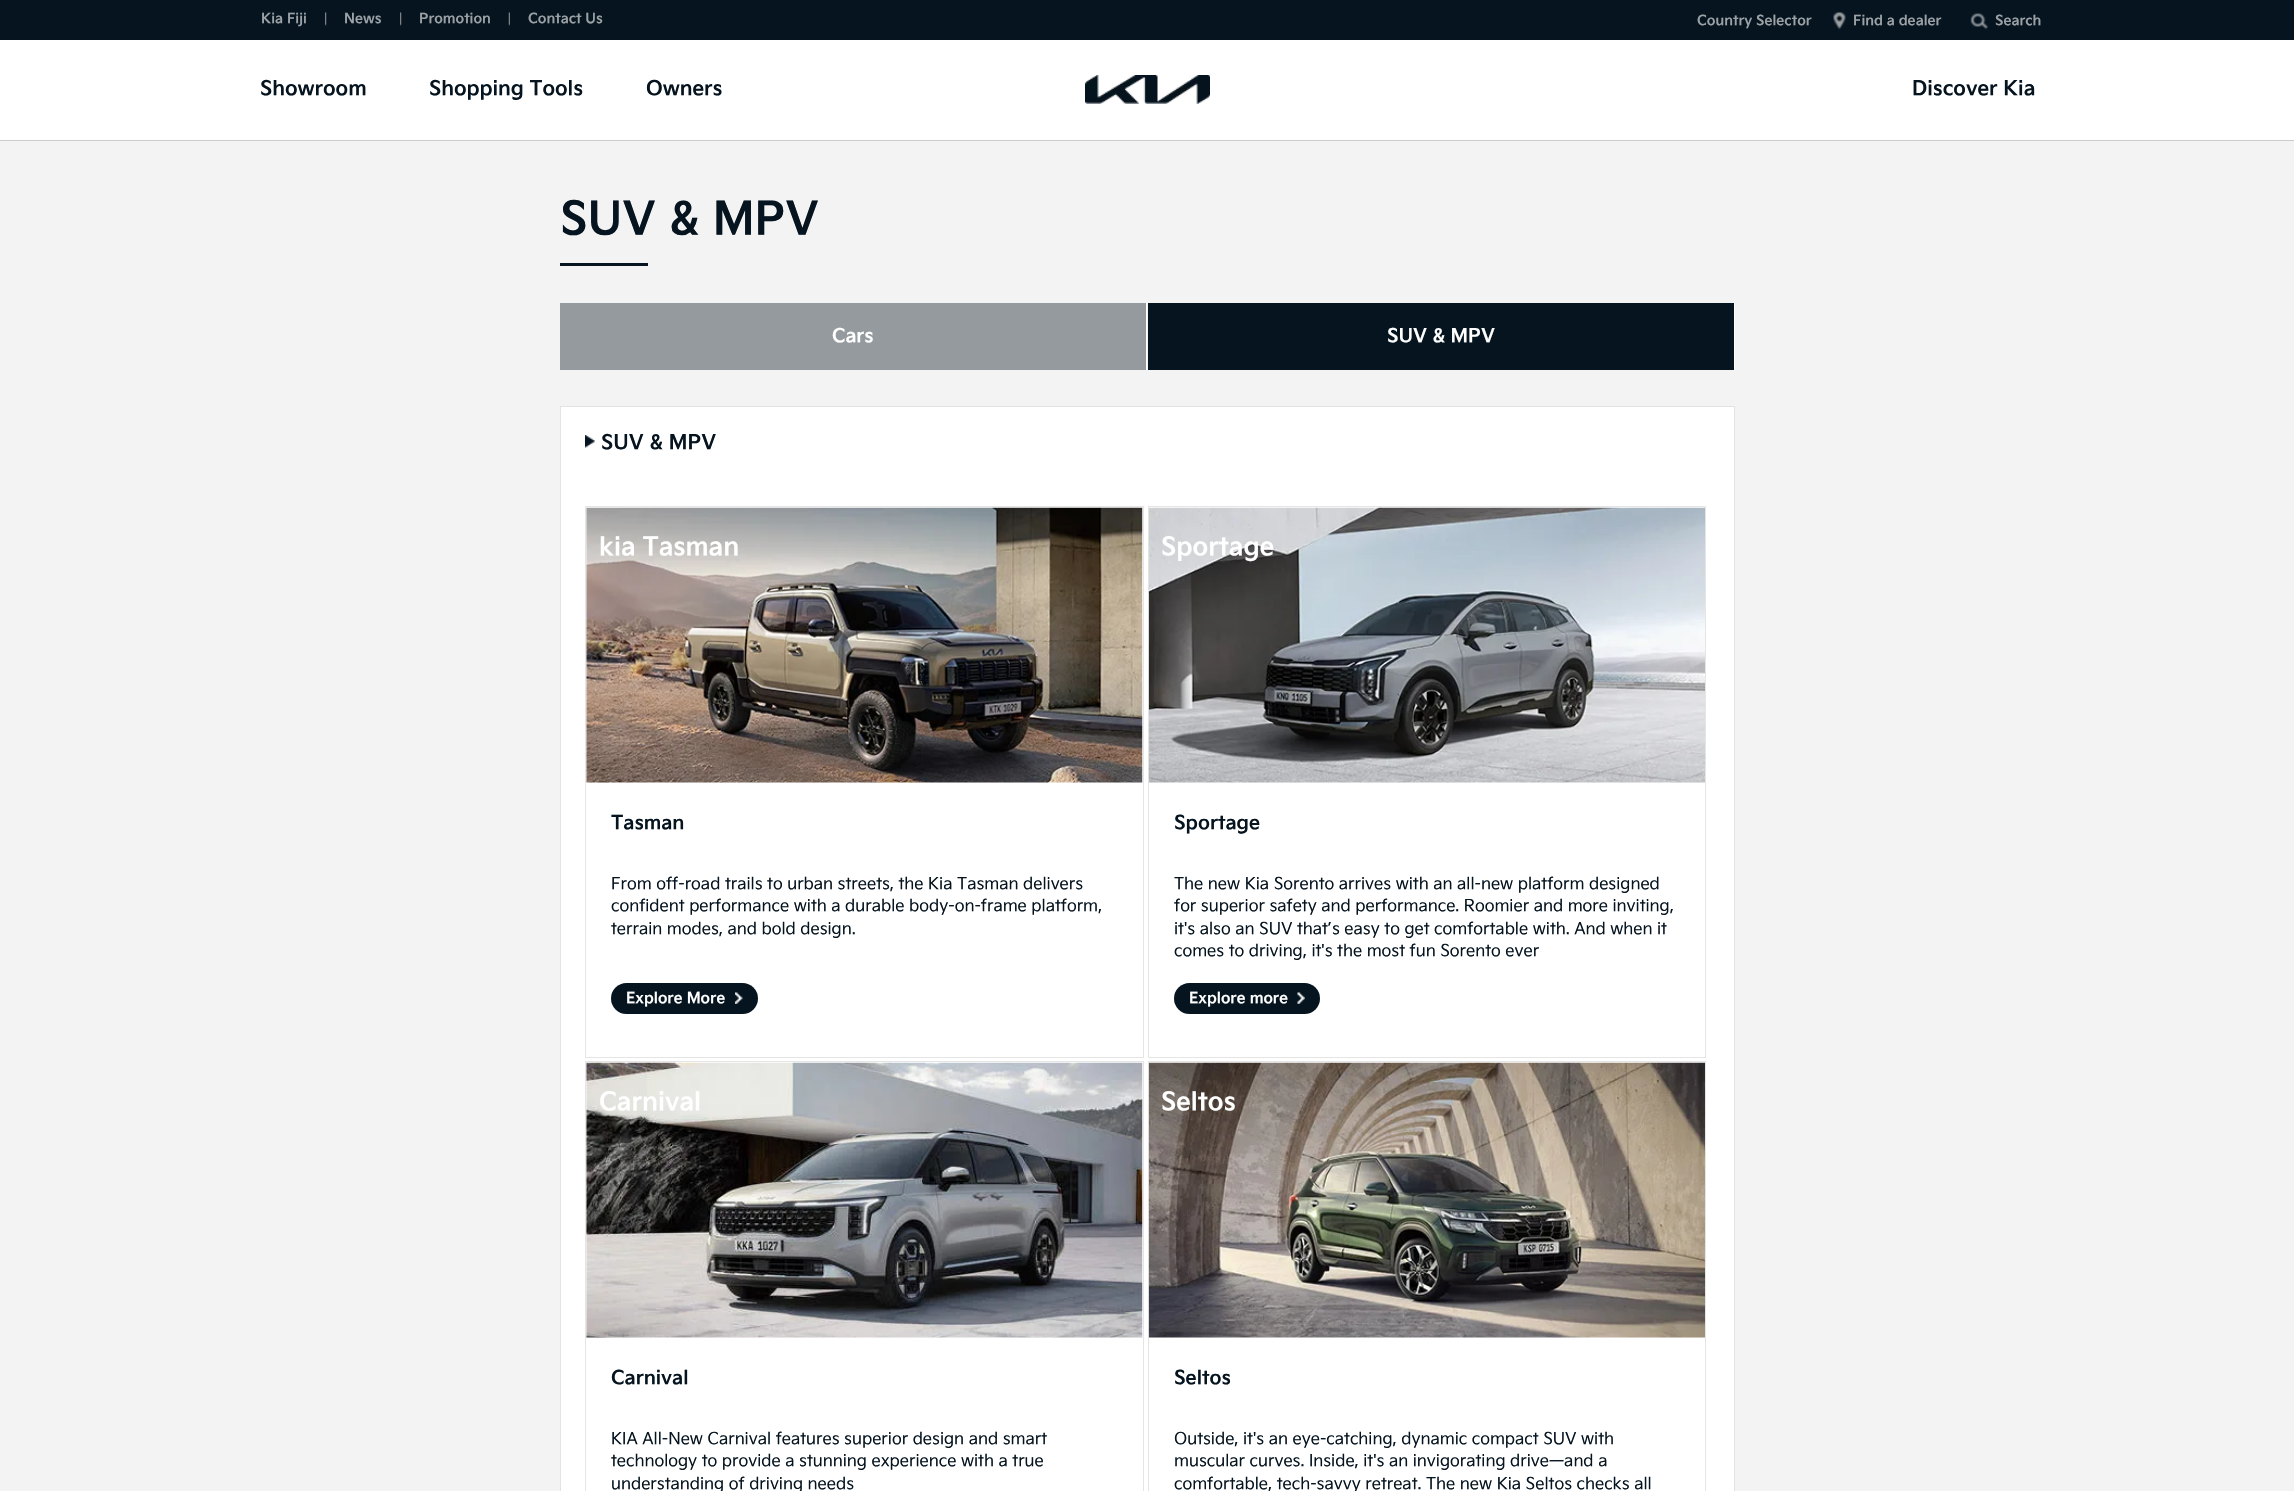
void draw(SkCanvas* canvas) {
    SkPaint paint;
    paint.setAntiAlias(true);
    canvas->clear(0xFFF3F3F3);
    paint.setColor(0xFFFFFFFF);
    canvas->drawRect(SkRect::MakeXYWH(0, 40, 2294, 100), paint);
    paint.setColor(0xFFCCCCCC);
    canvas->drawRect(SkRect::MakeXYWH(0, 140, 2294, 1), paint);
    paint.setColor(0xFF05141F);
    canvas->drawRect(SkRect::MakeXYWH(0, 0, 2294, 40), paint);
    SkFont font1(fontMgr->matchFamilyStyle("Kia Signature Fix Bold", SkFontStyle::Bold()), 13.75f);
    font1.setSubpixel(true);
    paint.setColor(0xFF9BA1A5);
    canvas->drawString("Kia Fiji", 261, 23, font1, paint);
    canvas->drawImageRect(SkImages::DeferredFromEncodedData(SkData::MakeFromFileName("img1.png")), SkRect::MakeXYWH(325, 12, 2, 14), SkSamplingOptions());
    canvas->drawString("News", 344, 23, font1, paint);
    canvas->drawImageRect(SkImages::DeferredFromEncodedData(SkData::MakeFromFileName("img1.png")), SkRect::MakeXYWH(400, 12, 2, 14), SkSamplingOptions());
    canvas->drawString("Promotion", 419, 23, font1, paint);
    canvas->drawImageRect(SkImages::DeferredFromEncodedData(SkData::MakeFromFileName("img2.png")), SkRect::MakeXYWH(508, 12, 2, 14), SkSamplingOptions());
    canvas->drawString("Contact Us", 528, 23, font1, paint);
    canvas->drawString("Country Selector", 1697, 25, font1, paint);
    canvas->drawImageRect(SkImages::DeferredFromEncodedData(SkData::MakeFromFileName("img3.png")), SkRect::MakeXYWH(1833, 12, 13, 18), SkSamplingOptions());
    canvas->drawString("Find a dealer", 1853, 25, font1, paint);
    canvas->drawImageRect(SkImages::DeferredFromEncodedData(SkData::MakeFromFileName("img4.png")), SkRect::MakeXYWH(1970, 13, 18, 17), SkSamplingOptions());
    canvas->drawString("Search", 1995, 25, font1, paint);
    SkFont font2(fontMgr->matchFamilyStyle("Kia Signature Fix Bold", SkFontStyle::Bold()), 20);
    font2.setSubpixel(true);
    paint.setColor(0xFF05141F);
    canvas->drawString("Showroom", 260, 95, font2, paint);
    canvas->drawString("Shopping Tools", 429, 95, font2, paint);
    canvas->drawString("Owners", 646, 95, font2, paint);
    canvas->drawString("Discover Kia", 1912, 95, font2, paint);
    canvas->drawImageRect(SkImages::DeferredFromEncodedData(SkData::MakeFromFileName("img5.png")), SkRect::MakeXYWH(1085, 75, 125, 29), SkSamplingOptions());
    SkFont font3(fontMgr->matchFamilyStyle("Kia Signature Fix Bold", SkFontStyle::Bold()), 45);
    font3.setSubpixel(true);
    canvas->drawString("SUV & MPV", 560, 234, font3, paint);
    canvas->drawRect(SkRect::MakeXYWH(560, 263, 88, 3), paint);
    paint.setColor(0xFFFFFFFF);
    canvas->drawRect(SkRect::MakeXYWH(1146, 303, 1, 67), paint);
    paint.setColor(0xFF949A9E);
    canvas->drawRect(SkRect::MakeXYWH(560, 303, 586, 67), paint);
    SkFont font4(fontMgr->matchFamilyStyle("Kia Signature Fix Bold", SkFontStyle::Bold()), 18.75f);
    font4.setSubpixel(true);
    paint.setColor(0xFFFFFFFF);
    canvas->drawString("Cars", 832, 342, font4, paint);
    canvas->drawRect(SkRect::MakeXYWH(1734, 303, 1, 67), paint);
    paint.setColor(0xFF05141F);
    canvas->drawRect(SkRect::MakeXYWH(1148, 303, 586, 67), paint);
    paint.setColor(0xFFFFFFFF);
    canvas->drawString("SUV & MPV", 1387, 342, font4, paint);
    canvas->drawRect(SkRect::MakeXYWH(560.5f, 406.5f, 1174, 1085), paint);
    paint.setStyle(SkPaint::kStroke_Style);
    paint.setStrokeWidth(1);
    paint.setColor(0xFFE3E3E3);
    canvas->drawRect(SkRect::MakeXYWH(560.5f, 406.5f, 1174, 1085), paint);
    canvas->drawImageRect(SkImages::DeferredFromEncodedData(SkData::MakeFromFileName("img6.png")), SkRect::MakeXYWH(585, 435, 10, 13), SkSamplingOptions());
    paint.setStyle(SkPaint::kFill_Style);
    paint.setColor(0xFF05141F);
    canvas->drawString("SUV & MPV", 601, 449, font2, paint);
    paint.setStyle(SkPaint::kStroke_Style);
    paint.setColor(0xFFE5E5E5);
    canvas->drawRect(SkRect::MakeXYWH(585.5f, 506.5f, 558, 551), paint);
    canvas->drawImageRect(SkImages::DeferredFromEncodedData(SkData::MakeFromFileName("img7.png")), SkRect::MakeXYWH(586, 507, 557, 276), SkSamplingOptions());
    SkFont font5(fontMgr->matchFamilyStyle("Kia Signature Fix Bold", SkFontStyle::Bold()), 25);
    font5.setSubpixel(true);
    paint.setStyle(SkPaint::kFill_Style);
    paint.setColor(0xFFFFFFFF);
    canvas->drawString("kia Tasman", 599, 555, font5, paint);
    SkFont font6(fontMgr->matchFamilyStyle("Kia Signature Fix Bold", SkFontStyle::Bold()), 19);
    font6.setSubpixel(true);
    paint.setColor(0xFF05141F);
    canvas->drawString("Tasman", 611, 829, font6, paint);
    SkFont font7(fontMgr->matchFamilyStyle("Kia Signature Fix", SkFontStyle::Normal()), 16.25f);
    font7.setSubpixel(true);
    canvas->drawString("From off-road trails to urban streets, the Kia Tasman delivers", 611, 889, font7, paint);
    canvas->drawString("confident performance with a durable body-on-frame platform,", 611, 911, font7, paint);
    canvas->drawString("terrain modes, and bold design.", 611, 934, font7, paint);
    canvas->drawRoundRect(SkRect::MakeXYWH(611, 983, 147, 31), 15.5f, 15.5f, paint);
    SkFont font8(fontMgr->matchFamilyStyle("Kia Signature Fix Bold", SkFontStyle::Bold()), 15);
    font8.setSubpixel(true);
    paint.setColor(0xFFFFFFFF);
    canvas->drawString("Explore More", 626, 1003, font8, paint);
    canvas->drawImageRect(SkImages::DeferredFromEncodedData(SkData::MakeFromFileName("img8.png")), SkRect::MakeXYWH(735, 992, 8, 12), SkSamplingOptions());
    paint.setStyle(SkPaint::kStroke_Style);
    paint.setColor(0xFFE5E5E5);
    canvas->drawRect(SkRect::MakeXYWH(1148.5f, 506.5f, 557, 551), paint);
    canvas->drawImageRect(SkImages::DeferredFromEncodedData(SkData::MakeFromFileName("img9.png")), SkRect::MakeXYWH(1148, 507, 557, 276), SkSamplingOptions());
    paint.setStyle(SkPaint::kFill_Style);
    paint.setColor(0xFFFFFFFF);
    canvas->drawString("Sportage", 1161, 555, font5, paint);
    paint.setColor(0xFF05141F);
    canvas->drawString("Sportage", 1174, 829, font6, paint);
    canvas->drawString("The new Kia Sorento arrives with an all-new platform designed", 1174, 889, font7, paint);
    canvas->drawString("for superior safety and performance. Roomier and more inviting,", 1174, 911, font7, paint);
    canvas->drawString("it's also an SUV that’s easy to get comfortable with. And when it", 1174, 934, font7, paint);
    canvas->drawString("comes to driving, it's the most fun Sorento ever", 1174, 956, font7, paint);
    canvas->drawRoundRect(SkRect::MakeXYWH(1174, 983, 146, 31), 15.5f, 15.5f, paint);
    paint.setColor(0xFFFFFFFF);
    canvas->drawString("Explore more", 1189, 1003, font8, paint);
    canvas->drawImageRect(SkImages::DeferredFromEncodedData(SkData::MakeFromFileName("img10.png")), SkRect::MakeXYWH(1297, 992, 8, 12), SkSamplingOptions());
    paint.setStyle(SkPaint::kStroke_Style);
    paint.setColor(0xFFE5E5E5);
    canvas->drawRect(SkRect::MakeXYWH(585.5f, 1061.5f, 558, 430), paint);
    canvas->drawImageRect(SkImages::DeferredFromEncodedData(SkData::MakeFromFileName("img11.png")), SkRect::MakeXYWH(586, 1062, 557, 276), SkSamplingOptions());
    paint.setStyle(SkPaint::kFill_Style);
    paint.setColor(0xFFFFFFFF);
    canvas->drawString("Carnival", 599, 1110, font5, paint);
    paint.setColor(0xFF05141F);
    canvas->drawString("Carnival", 611, 1384, font6, paint);
    canvas->drawString("KIA All-New Carnival features superior design and smart", 611, 1444, font7, paint);
    canvas->drawString("technology to provide a stunning experience with a true", 611, 1466, font7, paint);
    canvas->drawString("understanding of driving needs", 611, 1489, font7, paint);
    paint.setStyle(SkPaint::kStroke_Style);
    paint.setColor(0xFFE5E5E5);
    canvas->drawRect(SkRect::MakeXYWH(1148.5f, 1061.5f, 557, 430), paint);
    canvas->drawImageRect(SkImages::DeferredFromEncodedData(SkData::MakeFromFileName("img12.png")), SkRect::MakeXYWH(1148, 1062, 557, 276), SkSamplingOptions());
    paint.setStyle(SkPaint::kFill_Style);
    paint.setColor(0xFFFFFFFF);
    canvas->drawString("Seltos", 1161, 1110, font5, paint);
    paint.setColor(0xFF05141F);
    canvas->drawString("Seltos", 1174, 1384, font6, paint);
    canvas->drawString("Outside, it's an eye-catching, dynamic compact SUV with", 1174, 1444, font7, paint);
    canvas->drawString("muscular curves. Inside, it's an invigorating drive—and a", 1174, 1466, font7, paint);
    canvas->drawString("comfortable, tech-savvy retreat. The new Kia Seltos checks all", 1174, 1489, font7, paint);
}
